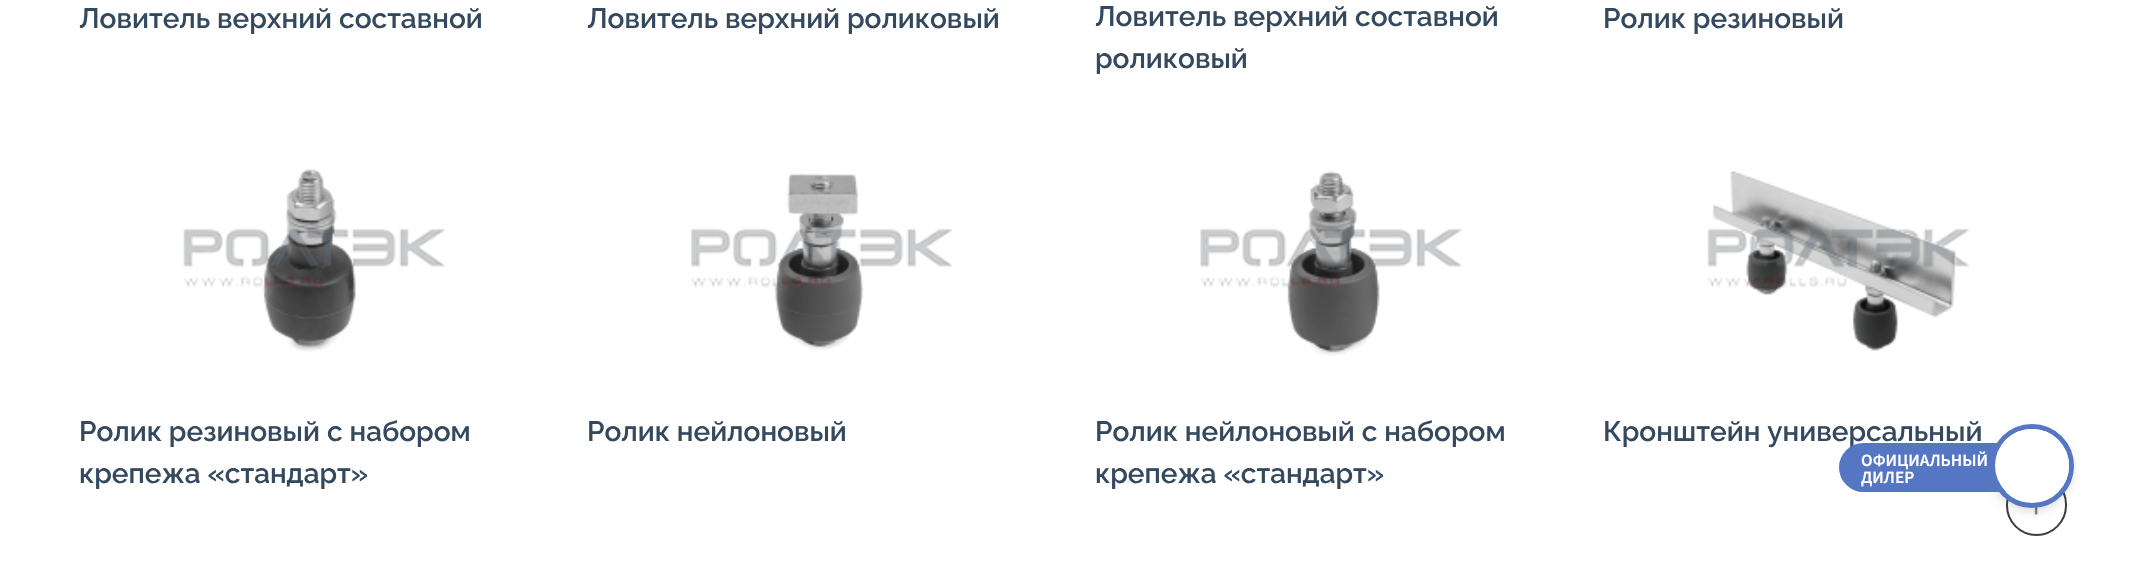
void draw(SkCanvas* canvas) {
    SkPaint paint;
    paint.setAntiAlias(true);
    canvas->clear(0xFFFFFFFF);
    SkFont font1(fontMgr->matchFamilyStyle("Raleway", SkFontStyle(600, SkFontStyle::kNormal_Width, SkFontStyle::kUpright_Slant)), 28);
    font1.setSubpixel(true);
    paint.setColor(0xFF34495E);
    canvas->drawString("Ловитель верхний составной", 79, 28, font1, paint);
    canvas->drawString("Ловитель верхний роликовый", 587, 28, font1, paint);
    canvas->drawString("Ловитель верхний составной", 1095, 26, font1, paint);
    canvas->drawString("роликовый", 1095, 68, font1, paint);
    canvas->drawString("Ролик резиновый", 1603, 28, font1, paint);
    canvas->drawImageRect(SkImages::DeferredFromEncodedData(SkData::MakeFromFileName("img1.png")), SkRect::MakeXYWH(183, 169, 262, 183), SkSamplingOptions());
    canvas->drawString("Ролик резиновый с набором", 79, 441, font1, paint);
    canvas->drawString("крепежа «стандарт»", 79, 483, font1, paint);
    canvas->drawImageRect(SkImages::DeferredFromEncodedData(SkData::MakeFromFileName("img2.png")), SkRect::MakeXYWH(691, 173, 262, 178), SkSamplingOptions());
    canvas->drawString("Ролик нейлоновый", 587, 441, font1, paint);
    canvas->drawImageRect(SkImages::DeferredFromEncodedData(SkData::MakeFromFileName("img3.png")), SkRect::MakeXYWH(1200, 171, 262, 185), SkSamplingOptions());
    canvas->drawString("Ролик нейлоновый с набором", 1095, 441, font1, paint);
    canvas->drawString("крепежа «стандарт»", 1095, 483, font1, paint);
    canvas->drawImageRect(SkImages::DeferredFromEncodedData(SkData::MakeFromFileName("img4.png")), SkRect::MakeXYWH(1707, 171, 263, 180), SkSamplingOptions());
    canvas->drawString("Кронштейн универсальный", 1603, 441, font1, paint);
    paint.setStyle(SkPaint::kStroke_Style);
    paint.setStrokeWidth(2);
    paint.setColor(0xFF3D3D3D);
    canvas->drawRoundRect(SkRect::MakeXYWH(2007, 475, 59, 60), 29.5f, 29.5f, paint);
    canvas->drawImageRect(SkImages::DeferredFromEncodedData(SkData::MakeFromFileName("img5.png")), SkRect::MakeXYWH(2034, 507, 4, 8), SkSamplingOptions());
    paint.setStyle(SkPaint::kFill_Style);
    paint.setColor(0x33000000);
    paint.setMaskFilter(SkMaskFilter::MakeBlur(kNormal_SkBlurStyle, 6));
    canvas->drawRoundRect(SkRect::MakeXYWH(1993, 431, 77, 78), 38.5f, 38.5f, paint);
    paint.setMaskFilter(nullptr);
    paint.setColor(0xFFFFFFFF);
    canvas->drawCircle(2032, 466, 39.5f, paint);
    paint.setStyle(SkPaint::kStroke_Style);
    paint.setStrokeWidth(5);
    paint.setColor(0xFF5576C2);
    canvas->drawCircle(2032, 466, 39.5f, paint);
    paint.setStyle(SkPaint::kFill_Style);
    canvas->drawRoundRect(SkRect::MakeXYWH(1839, 443, 216, 49), 24.5f, 24.5f, paint);
    SkFont font2(fontMgr->matchFamilyStyle("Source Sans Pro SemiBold", SkFontStyle(600, SkFontStyle::kNormal_Width, SkFontStyle::kUpright_Slant)), 17.25f);
    font2.setSubpixel(true);
    paint.setColor(0xFFFFFFFF);
    canvas->drawString("ОФИЦИАЛЬНЫЙ", 1861, 466, font2, paint);
    canvas->drawString("ДИЛЕР", 1861, 483, font2, paint);
    canvas->drawRoundRect(SkRect::MakeXYWH(1995, 429, 74, 73), 36.5f, 36.5f, paint);
}
